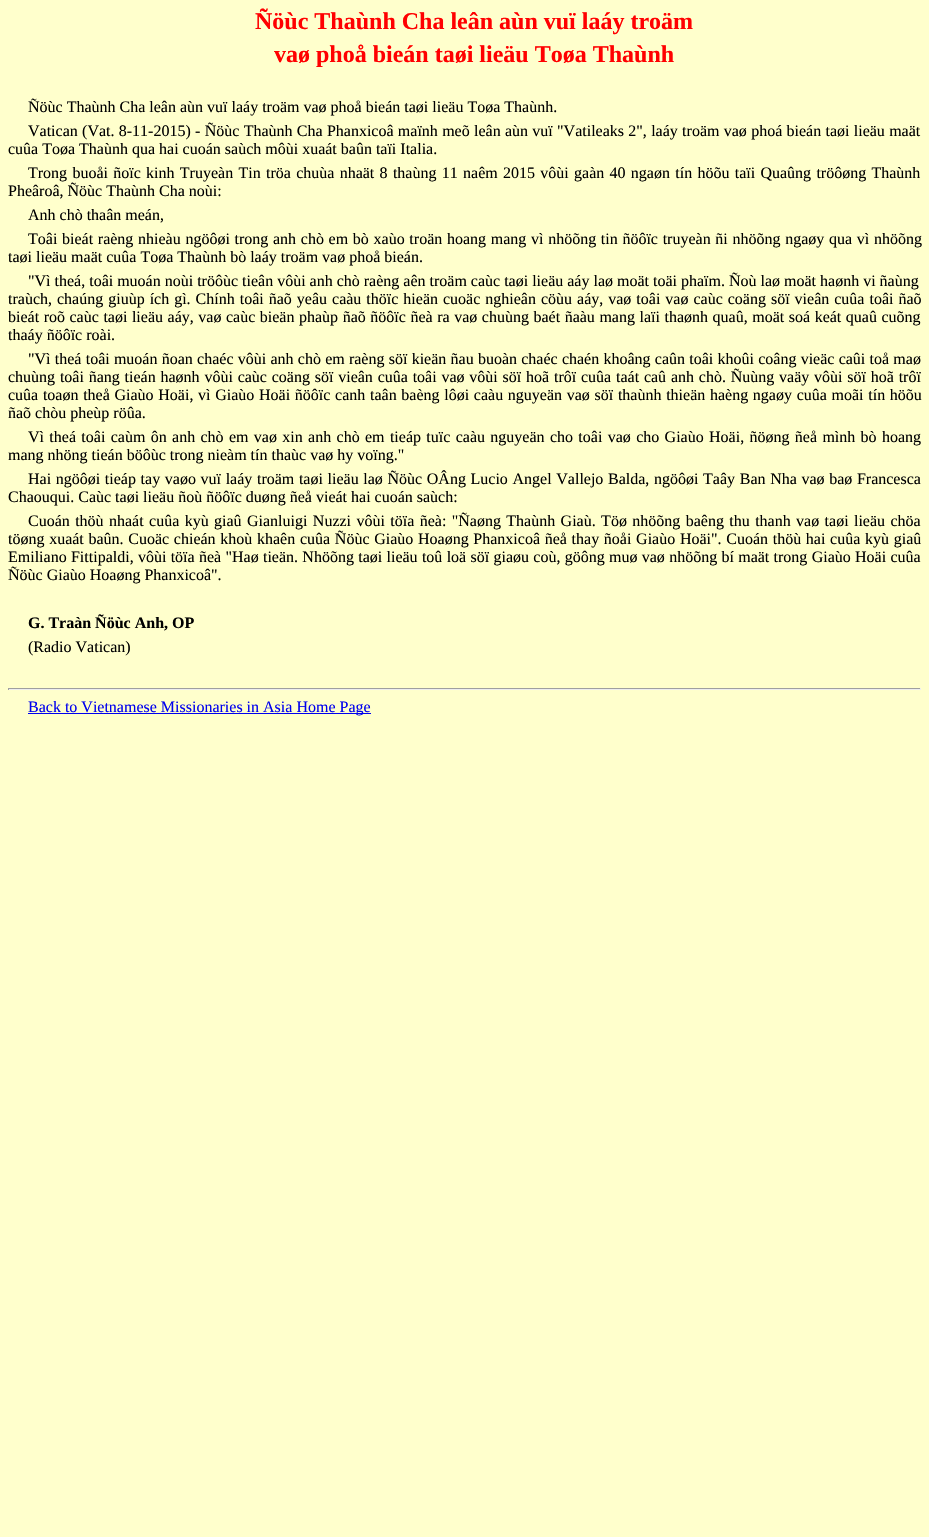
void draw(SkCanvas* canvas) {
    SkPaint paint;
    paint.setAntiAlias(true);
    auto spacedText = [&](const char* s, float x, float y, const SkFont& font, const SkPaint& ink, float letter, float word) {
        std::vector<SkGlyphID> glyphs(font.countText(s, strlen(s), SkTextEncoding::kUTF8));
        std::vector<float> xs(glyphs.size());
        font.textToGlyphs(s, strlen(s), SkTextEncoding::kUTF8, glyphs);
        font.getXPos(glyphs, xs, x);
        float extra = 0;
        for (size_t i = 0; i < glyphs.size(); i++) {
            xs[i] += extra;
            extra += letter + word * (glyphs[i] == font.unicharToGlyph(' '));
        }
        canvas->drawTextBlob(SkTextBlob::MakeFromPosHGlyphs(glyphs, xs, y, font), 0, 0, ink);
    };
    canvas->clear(0xFFFFFFCC);
    SkFont font1(fontMgr->matchFamilyStyle("Liberation Serif", SkFontStyle::Bold()), 24);
    font1.setSubpixel(true);
    paint.setColor(0xFFFF0000);
    canvas->drawString("Ñöùc Thaùnh Cha leân aùn vuï laáy troäm", 255, 29, font1, paint);
    canvas->drawString("vaø phoå bieán taøi lieäu Toøa Thaùnh", 274, 62, font1, paint);
    SkFont font2(fontMgr->matchFamilyStyle("Liberation Serif", SkFontStyle::Normal()), 16);
    font2.setSubpixel(true);
    paint.setColor(0xFF000000);
    canvas->drawString("Ñöùc Thaùnh Cha leân aùn vuï laáy troäm vaø phoå bieán taøi lieäu Toøa Thaùnh.", 28, 112, font2, paint);
    spacedText("Vatican (Vat. 8-11-2015) - Ñöùc Thaùnh Cha Phanxicoâ maïnh meõ leân aùn vuï \"Vatileaks 2\", laáy troäm vaø phoá bieán taøi lieäu maät", 28, 136, font2, paint, 0, 0.3f);
    canvas->drawString("cuûa Toøa Thaùnh qua hai cuoán saùch môùi xuaát baûn taïi Italia.", 8, 154, font2, paint);
    spacedText("Trong buoåi ñoïc kinh Truyeàn Tin tröa chuùa nhaät 8 thaùng 11 naêm 2015 vôùi gaàn 40 ngaøn tín höõu taïi Quaûng tröôøng Thaùnh", 28, 178, font2, paint, 0, 1.3f);
    canvas->drawString("Pheâroâ, Ñöùc Thaùnh Cha noùi:", 8, 196, font2, paint);
    canvas->drawString("Anh chò thaân meán,", 28, 220, font2, paint);
    spacedText("Toâi bieát raèng nhieàu ngöôøi trong anh chò em bò xaùo troän hoang mang vì nhöõng tin ñöôïc truyeàn ñi nhöõng ngaøy qua vì nhöõng", 28, 244, font2, paint, 0, 0.7f);
    canvas->drawString("taøi lieäu maät cuûa Toøa Thaùnh bò laáy troäm vaø phoå bieán.", 8, 262, font2, paint);
    canvas->drawString("\"Vì theá, toâi muoán noùi tröôùc tieân vôùi anh chò raèng aên troäm caùc taøi lieäu aáy laø moät toäi phaïm. Ñoù laø moät haønh vi ñaùng", 28, 286, font2, paint);
    spacedText("traùch, chaúng giuùp ích gì. Chính toâi ñaõ yeâu caàu thöïc hieän cuoäc nghieân cöùu aáy, vaø toâi vaø caùc coäng söï vieân cuûa toâi ñaõ", 8, 304, font2, paint, 0, 1);
    spacedText("bieát roõ caùc taøi lieäu aáy, vaø caùc bieän phaùp ñaõ ñöôïc ñeà ra vaø chuùng baét ñaàu mang laïi thaønh quaû, moät soá keát quaû cuõng", 8, 322, font2, paint, 0, 0.55f);
    canvas->drawString("thaáy ñöôïc roài.", 8, 340, font2, paint);
    spacedText("\"Vì theá toâi muoán ñoan chaéc vôùi anh chò em raèng söï kieän ñau buoàn chaéc chaén khoâng caûn toâi khoûi coâng vieäc caûi toå maø", 28, 364, font2, paint, 0, 0.25f);
    spacedText("chuùng toâi ñang tieán haønh vôùi caùc coäng söï vieân cuûa toâi vaø vôùi söï hoã trôï cuûa taát caû anh chò. Ñuùng vaäy vôùi söï hoã trôï", 8, 382, font2, paint, 0, 0.8f);
    spacedText("cuûa toaøn theå Giaùo Hoäi, vì Giaùo Hoäi ñöôïc canh taân baèng lôøi caàu nguyeän vaø söï thaùnh thieän haèng ngaøy cuûa moãi tín höõu", 8, 400, font2, paint, 0, 0.7f);
    canvas->drawString("ñaõ chòu pheùp röûa.", 8, 418, font2, paint);
    spacedText("Vì theá toâi caùm ôn anh chò em vaø xin anh chò em tieáp tuïc caàu nguyeän cho toâi vaø cho Giaùo Hoäi, ñöøng ñeå mình bò hoang", 28, 442, font2, paint, 0, 1.35f);
    canvas->drawString("mang nhöng tieán böôùc trong nieàm tín thaùc vaø hy voïng.\"", 8, 460, font2, paint);
    spacedText("Hai ngöôøi tieáp tay vaøo vuï laáy troäm taøi lieäu laø Ñöùc OÂng Lucio Angel Vallejo Balda, ngöôøi Taây Ban Nha vaø baø Francesca", 28, 484, font2, paint, 0, 0.65f);
    canvas->drawString("Chaouqui. Caùc taøi lieäu ñoù ñöôïc duøng ñeå vieát hai cuoán saùch:", 8, 502, font2, paint);
    spacedText("Cuoán thöù nhaát cuûa kyù giaû Gianluigi Nuzzi vôùi töïa ñeà: \"Ñaøng Thaùnh Giaù. Töø nhöõng baêng thu thanh vaø taøi lieäu chöa", 28, 526, font2, paint, 0, 1.4f);
    spacedText("töøng xuaát baûn. Cuoäc chieán khoù khaên cuûa Ñöùc Giaùo Hoaøng Phanxicoâ ñeå thay ñoåi Giaùo Hoäi\". Cuoán thöù hai cuûa kyù giaû", 8, 544, font2, paint, 0, 0.7f);
    spacedText("Emiliano Fittipaldi, vôùi töïa ñeà \"Haø tieän. Nhöõng taøi lieäu toû loä söï giaøu coù, göông muø vaø nhöõng bí maät trong Giaùo Hoäi cuûa", 8, 562, font2, paint, 0, 0.3f);
    canvas->drawString("Ñöùc Giaùo Hoaøng Phanxicoâ\".", 8, 580, font2, paint);
    SkFont font3(fontMgr->matchFamilyStyle("Liberation Serif", SkFontStyle::Bold()), 16);
    font3.setSubpixel(true);
    canvas->drawString("G. Traàn Ñöùc Anh, OP", 28, 628, font3, paint);
    canvas->drawString("(Radio Vatican)", 28, 652, font2, paint);
    paint.setColor(0xFF9F9F9F);
    canvas->drawRect(SkRect::MakeXYWH(8, 688, 913, 1), paint);
    paint.setColor(0xFFEEEEEE);
    canvas->drawRect(SkRect::MakeXYWH(920, 688, 1, 2), paint);
    canvas->drawRect(SkRect::MakeXYWH(8, 689, 913, 1), paint);
    paint.setColor(0xFF9F9F9F);
    canvas->drawRect(SkRect::MakeXYWH(8, 688, 1, 2), paint);
    paint.setColor(0xFF0000EE);
    canvas->drawRect(SkRect::MakeXYWH(28, 713, 343, 1), paint);
    canvas->drawString("Back to Vietnamese Missionaries in Asia Home Page", 28, 712, font2, paint);
}
